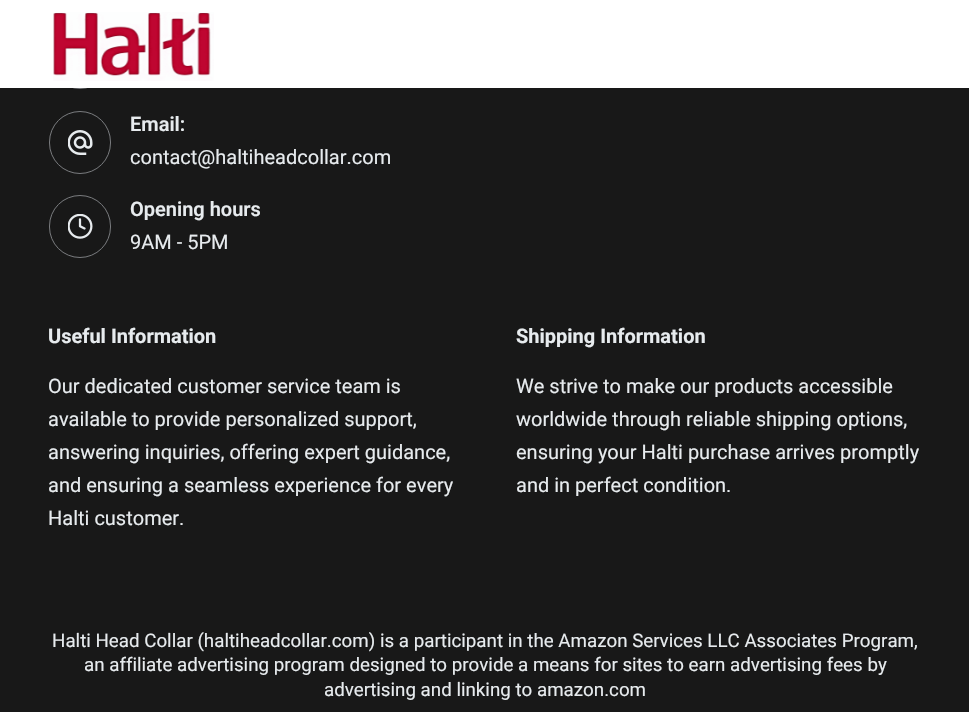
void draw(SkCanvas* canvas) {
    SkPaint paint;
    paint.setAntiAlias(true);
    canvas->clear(0xFF181818);
    paint.setStyle(SkPaint::kStroke_Style);
    paint.setStrokeWidth(1);
    paint.setColor(0xFF797B7E);
    canvas->drawRoundRect(SkRect::MakeXYWH(49.5f, 26.5f, 61, 62), 30.5f, 30.5f, paint);
    paint.setStyle(SkPaint::kFill_Style);
    paint.setColor(0xFFFFFFFF);
    canvas->drawRect(SkRect::MakeXYWH(0, 0, 969, 88), paint);
    canvas->drawImageRect(SkImages::DeferredFromEncodedData(SkData::MakeFromFileName("img1.png")), SkRect::MakeXYWH(53, 12, 161, 69), SkSamplingOptions());
    paint.setStyle(SkPaint::kStroke_Style);
    paint.setColor(0xFF797B7E);
    canvas->drawRoundRect(SkRect::MakeXYWH(49.5f, 111.5f, 61, 62), 30.5f, 30.5f, paint);
    canvas->drawImageRect(SkImages::DeferredFromEncodedData(SkData::MakeFromFileName("img2.png")), SkRect::MakeXYWH(68, 130, 25, 25), SkSamplingOptions());
    SkFont font1(fontMgr->matchFamilyStyle("Roboto", SkFontStyle(600, SkFontStyle::kNormal_Width, SkFontStyle::kUpright_Slant)), 20);
    font1.setSubpixel(true);
    paint.setStyle(SkPaint::kFill_Style);
    paint.setColor(0xFFE7EBEE);
    canvas->drawString("Email:", 130, 131, font1, paint);
    SkFont font2(fontMgr->matchFamilyStyle("Roboto", SkFontStyle::Normal()), 20);
    font2.setSubpixel(true);
    canvas->drawString("contact@haltiheadcollar.com", 130, 164, font2, paint);
    paint.setStyle(SkPaint::kStroke_Style);
    paint.setColor(0xFF797B7E);
    canvas->drawRoundRect(SkRect::MakeXYWH(49.5f, 195.5f, 61, 62), 30.5f, 30.5f, paint);
    canvas->drawImageRect(SkImages::DeferredFromEncodedData(SkData::MakeFromFileName("img3.png")), SkRect::MakeXYWH(68, 214, 25, 25), SkSamplingOptions());
    paint.setStyle(SkPaint::kFill_Style);
    paint.setColor(0xFFE7EBEE);
    canvas->drawString("Opening hours", 130, 216, font1, paint);
    canvas->drawString("9AM - 5PM", 130, 249, font2, paint);
    SkFont font3(fontMgr->matchFamilyStyle("Roboto", SkFontStyle::Bold()), 20);
    font3.setSubpixel(true);
    canvas->drawString("Useful Information", 48, 343, font3, paint);
    canvas->drawString("Our dedicated customer service team is", 48, 393, font2, paint);
    canvas->drawString("available to provide personalized support,", 48, 426, font2, paint);
    canvas->drawString("answering inquiries, offering expert guidance,", 48, 459, font2, paint);
    canvas->drawString("and ensuring a seamless experience for every", 48, 492, font2, paint);
    canvas->drawString("Halti customer.", 48, 525, font2, paint);
    canvas->drawString("Shipping Information", 516, 343, font3, paint);
    canvas->drawString("We strive to make our products accessible", 516, 393, font2, paint);
    canvas->drawString("worldwide through reliable shipping options,", 516, 426, font2, paint);
    canvas->drawString("ensuring your Halti purchase arrives promptly", 516, 459, font2, paint);
    canvas->drawString("and in perfect condition.", 516, 492, font2, paint);
    SkFont font4(fontMgr->matchFamilyStyle("Roboto", SkFontStyle::Normal()), 18.75f);
    font4.setSubpixel(true);
    canvas->drawString("Halti Head Collar (haltiheadcollar.com) is a participant in the Amazon Services LLC Associates Program,", 52, 647, font4, paint);
    canvas->drawString("an affiliate advertising program designed to provide a means for sites to earn advertising fees by", 84, 671, font4, paint);
    canvas->drawString("advertising and linking to amazon.com", 324, 696, font4, paint);
}
